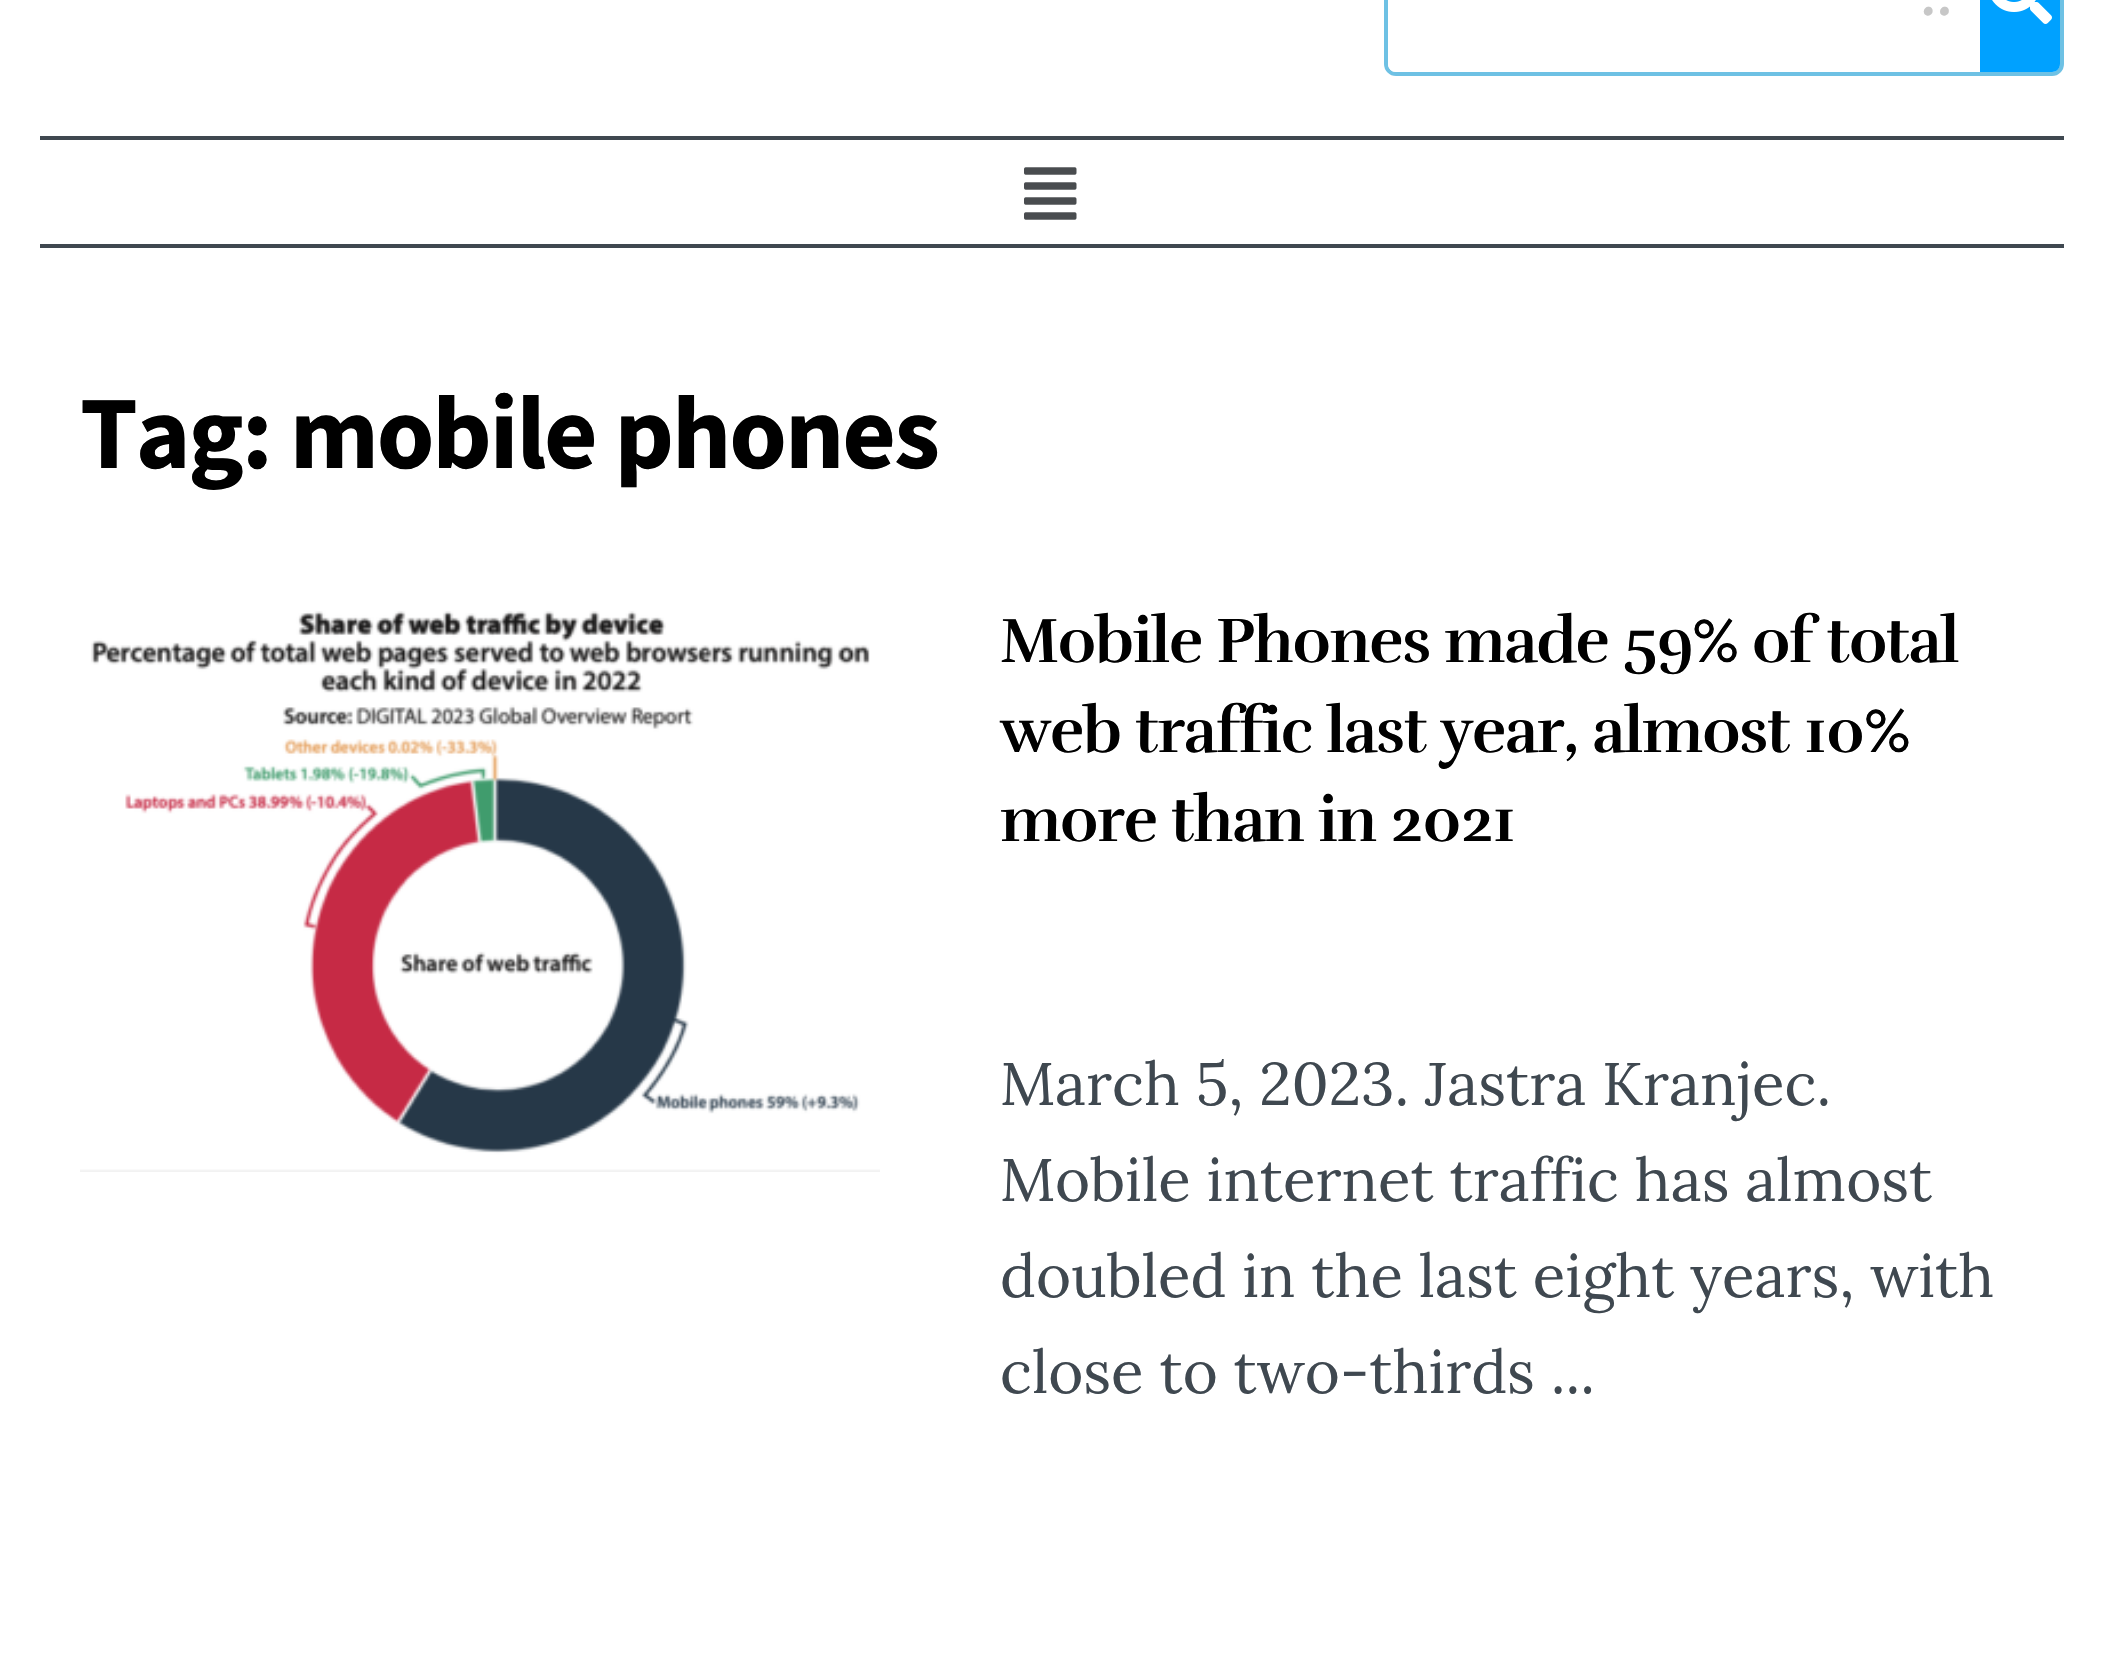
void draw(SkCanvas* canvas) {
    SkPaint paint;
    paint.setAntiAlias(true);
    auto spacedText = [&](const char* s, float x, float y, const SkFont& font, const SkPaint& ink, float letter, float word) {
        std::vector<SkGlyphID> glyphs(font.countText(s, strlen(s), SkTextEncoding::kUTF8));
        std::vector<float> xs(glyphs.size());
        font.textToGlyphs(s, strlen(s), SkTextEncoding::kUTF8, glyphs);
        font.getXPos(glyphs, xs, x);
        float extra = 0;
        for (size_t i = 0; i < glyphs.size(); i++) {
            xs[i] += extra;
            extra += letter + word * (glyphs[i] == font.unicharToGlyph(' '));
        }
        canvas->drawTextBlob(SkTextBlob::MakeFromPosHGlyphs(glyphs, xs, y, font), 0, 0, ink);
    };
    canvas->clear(0xFFFFFFFF);
    paint.setStyle(SkPaint::kStroke_Style);
    paint.setStrokeWidth(4);
    paint.setColor(0xFF6EC1E4);
    canvas->drawRoundRect(SkRect::MakeXYWH(1386, -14, 676, 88), 10, 10, paint);
    paint.setStyle(SkPaint::kFill_Style);
    paint.setColor(0xFFFFFFFF);
    canvas->drawPath(SkPathBuilder().moveTo(1396, -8).lineTo(1980, -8).lineTo(1980, 72).lineTo(1396, 72).cubicTo(1391.5f, 72, 1388, 68.5f, 1388, 64).lineTo(1388, 0).cubicTo(1388, -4.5f, 1391.5f, -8, 1396, -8).close().detach(), paint);
    SkFont font1(fontMgr->matchFamilyStyle("Merriweather", SkFontStyle::Normal()), 64);
    font1.setSubpixel(true);
    paint.setColor(0xFFC7C7C7);
    canvas->drawString("..", 1920, 15, font1, paint);
    paint.setColor(0xFF00A1FF);
    canvas->drawPath(SkPathBuilder().moveTo(1980, -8).lineTo(2052, -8).cubicTo(2056.5f, -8, 2060, -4.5f, 2060, 0).lineTo(2060, 64).cubicTo(2060, 68.5f, 2056.5f, 72, 2052, 72).lineTo(1980, 72).close().detach(), paint);
    canvas->drawImageRect(SkImages::DeferredFromEncodedData(SkData::MakeFromFileName("img1.png")), SkRect::MakeXYWH(1992, 0, 60, 24), SkSamplingOptions());
    paint.setColor(0xFF3F4850);
    canvas->drawRect(SkRect::MakeXYWH(40, 136, 2024, 4), paint);
    canvas->drawRect(SkRect::MakeXYWH(40, 244, 2024, 4), paint);
    canvas->drawImageRect(SkImages::DeferredFromEncodedData(SkData::MakeFromFileName("img2.png")), SkRect::MakeXYWH(1024, 167, 53, 53), SkSamplingOptions());
    SkFont font2(fontMgr->matchFamilyStyle("Source Sans Pro", SkFontStyle::Bold()), 104);
    font2.setSubpixel(true);
    paint.setColor(0xFF000000);
    spacedText("Tag: mobile phones", 80, 468, font2, paint, -2.1f, 0);
    canvas->drawImageRect(SkImages::DeferredFromEncodedData(SkData::MakeFromFileName("img3.png")), SkRect::MakeXYWH(80, 600, 800, 572), SkSamplingOptions());
    SkFont font3(fontMgr->matchFamilyStyle("Rufina", SkFontStyle::Bold()), 64);
    font3.setSubpixel(true);
    spacedText("Mobile Phones made 59% of total", 1000, 662, font3, paint, -1.25f, 0);
    spacedText("web traffic last year, almost 10%", 1000, 752, font3, paint, -1.25f, 0);
    spacedText("more than in 2021", 1000, 841, font3, paint, -1.25f, 0);
    SkFont font4(fontMgr->matchFamilyStyle("Lora", SkFontStyle::Normal()), 60);
    font4.setSubpixel(true);
    paint.setColor(0xFF3F4850);
    canvas->drawString("March 5, 2023. Jastra Kranjec.", 1000, 1105, font4, paint);
    canvas->drawString("Mobile internet traffic has almost", 1000, 1201, font4, paint);
    canvas->drawString("doubled in the last eight years, with", 1000, 1297, font4, paint);
    canvas->drawString("close to two-thirds ...", 1000, 1393, font4, paint);
}
